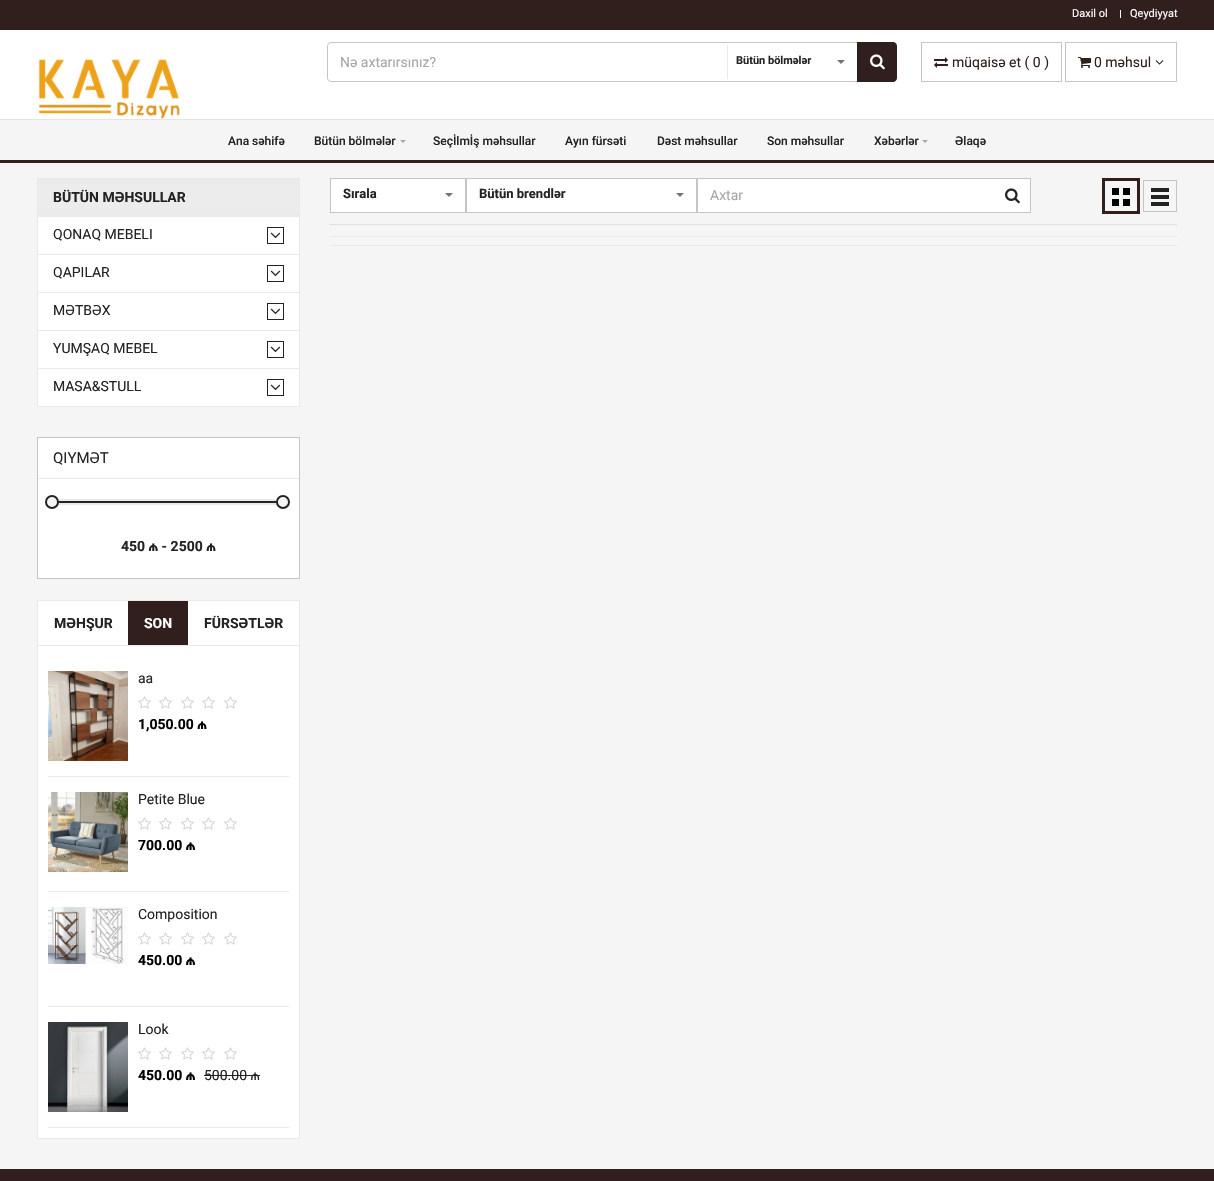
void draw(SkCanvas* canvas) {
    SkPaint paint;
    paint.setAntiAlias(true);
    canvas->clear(0xFFF5F5F5);
    paint.setColor(0xFF311F1D);
    canvas->drawRect(SkRect::MakeXYWH(0, 0, 1214, 30), paint);
    SkFont font1(fontMgr->matchFamilyStyle("Roboto", SkFontStyle::Normal()), 11);
    font1.setSubpixel(true);
    paint.setColor(0xFFFFFFFF);
    canvas->drawString("Daxil ol", 1072, 17, font1, paint);
    canvas->drawRect(SkRect::MakeXYWH(1120, 10, 1, 8), paint);
    canvas->drawString("Qeydiyyat", 1130, 17, font1, paint);
    paint.setColor(0xFF311F1D);
    canvas->drawRect(SkRect::MakeXYWH(0, 160, 1214, 3), paint);
    paint.setColor(0xFFFFFFFF);
    canvas->drawRect(SkRect::MakeXYWH(0, 30, 1214, 89), paint);
    canvas->drawImageRect(SkImages::DeferredFromEncodedData(SkData::MakeFromFileName("img1.png")), SkRect::MakeXYWH(38, 59, 142, 60), SkSamplingOptions());
    paint.setStyle(SkPaint::kStroke_Style);
    paint.setStrokeWidth(1);
    paint.setColor(0xFFC5C5C5);
    canvas->drawRoundRect(SkRect::MakeXYWH(327.5f, 42.5f, 569, 39), 3.5f, 3.5f, paint);
    SkFont font2(fontMgr->matchFamilyStyle("Roboto", SkFontStyle::Normal()), 14);
    font2.setSubpixel(true);
    paint.setStyle(SkPaint::kFill_Style);
    paint.setColor(0xFFA6A7A8);
    canvas->drawString("Nə axtarırsınız?", 340, 67, font2, paint);
    paint.setColor(0xFFE9E9E9);
    canvas->drawRect(SkRect::MakeXYWH(727, 45, 1, 34), paint);
    SkFont font3(fontMgr->matchFamilyStyle("Roboto", SkFontStyle::Bold()), 11);
    font3.setSubpixel(true);
    paint.setColor(0xFF232323);
    canvas->drawString("Bütün bölmələr", 736, 64, font3, paint);
    paint.setColor(0xFF737475);
    canvas->drawPath(SkPathBuilder().moveTo(837, 60).lineTo(845, 60).lineTo(841, 64).close().detach(), paint);
    paint.setColor(0xFF311F1D);
    canvas->drawPath(SkPathBuilder().moveTo(857, 42).lineTo(893, 42).cubicTo(895, 42, 897, 44, 897, 46).lineTo(897, 78).cubicTo(897, 80, 895, 82, 893, 82).lineTo(857, 82).close().detach(), paint);
    canvas->drawImageRect(SkImages::DeferredFromEncodedData(SkData::MakeFromFileName("img2.png")), SkRect::MakeXYWH(870, 54, 15, 16), SkSamplingOptions());
    paint.setStyle(SkPaint::kStroke_Style);
    paint.setColor(0xFFC5C5C5);
    canvas->drawRect(SkRect::MakeXYWH(921.5f, 42.5f, 140, 39), paint);
    canvas->drawImageRect(SkImages::DeferredFromEncodedData(SkData::MakeFromFileName("img3.png")), SkRect::MakeXYWH(934, 57, 14, 11), SkSamplingOptions());
    paint.setStyle(SkPaint::kFill_Style);
    paint.setColor(0xFF311F1D);
    canvas->drawString("müqaisə et ( 0 )", 952, 67, font2, paint);
    paint.setStyle(SkPaint::kStroke_Style);
    paint.setColor(0xFFC5C5C5);
    canvas->drawRect(SkRect::MakeXYWH(1065.5f, 42.5f, 111, 39), paint);
    canvas->drawImageRect(SkImages::DeferredFromEncodedData(SkData::MakeFromFileName("img4.png")), SkRect::MakeXYWH(1078, 57, 13, 11), SkSamplingOptions());
    paint.setStyle(SkPaint::kFill_Style);
    paint.setColor(0xFF311F1D);
    canvas->drawString("0 məhsul", 1094, 67, font2, paint);
    canvas->drawImageRect(SkImages::DeferredFromEncodedData(SkData::MakeFromFileName("img5.png")), SkRect::MakeXYWH(1155, 60, 9, 5), SkSamplingOptions());
    paint.setColor(0xFFE4E4E4);
    canvas->drawRect(SkRect::MakeXYWH(0, 119, 1214, 1), paint);
    SkFont font4(fontMgr->matchFamilyStyle("Roboto", SkFontStyle(500, SkFontStyle::kNormal_Width, SkFontStyle::kUpright_Slant)), 12);
    font4.setSubpixel(true);
    paint.setColor(0xFF232323);
    canvas->drawString("Ana səhifə", 228, 145, font4, paint);
    canvas->drawString("Bütün bölmələr", 314, 145, font4, paint);
    paint.setColor(0xFFA5ABB7);
    canvas->drawPath(SkPathBuilder().moveTo(400, 140).lineTo(406, 140).lineTo(403, 143).close().detach(), paint);
    paint.setColor(0xFF232323);
    canvas->drawString("Seçİlmİş məhsullar", 433, 145, font4, paint);
    canvas->drawString("Ayın fürsəti", 565, 145, font4, paint);
    canvas->drawString("Dəst məhsullar", 657, 145, font4, paint);
    canvas->drawString("Son məhsullar", 767, 145, font4, paint);
    canvas->drawString("Xəbərlər", 874, 145, font4, paint);
    paint.setColor(0xFFA5ABB7);
    canvas->drawPath(SkPathBuilder().moveTo(922, 140).lineTo(928, 140).lineTo(925, 143).close().detach(), paint);
    paint.setColor(0xFF232323);
    canvas->drawString("Əlaqə", 955, 145, font4, paint);
    paint.setColor(0xFFFFFFFF);
    canvas->drawRect(SkRect::MakeXYWH(38, 217, 261, 189), paint);
    paint.setStyle(SkPaint::kStroke_Style);
    paint.setColor(0xFFE9E9E9);
    canvas->drawRect(SkRect::MakeXYWH(37.5f, 178.5f, 262, 228), paint);
    paint.setStyle(SkPaint::kFill_Style);
    canvas->drawRect(SkRect::MakeXYWH(38, 179, 261, 1), paint);
    paint.setColor(0xFFECECEC);
    canvas->drawRect(SkRect::MakeXYWH(38, 180, 261, 35), paint);
    paint.setColor(0xFFE9E9E9);
    canvas->drawRect(SkRect::MakeXYWH(38, 215, 261, 2), paint);
    SkFont font5(fontMgr->matchFamilyStyle("Roboto", SkFontStyle::Bold()), 14);
    font5.setSubpixel(true);
    paint.setColor(0xFF232323);
    canvas->drawString("BÜTÜN MƏHSULLAR", 53, 202, font5, paint);
    canvas->drawString("QONAQ MEBELI", 53, 239, font2, paint);
    paint.setStyle(SkPaint::kStroke_Style);
    canvas->drawRect(SkRect::MakeXYWH(267.5f, 227.5f, 16, 16), paint);
    canvas->drawImageRect(SkImages::DeferredFromEncodedData(SkData::MakeFromFileName("img6.png")), SkRect::MakeXYWH(270, 232, 11, 7), SkSamplingOptions());
    paint.setStyle(SkPaint::kFill_Style);
    paint.setColor(0xFFE9E9E9);
    canvas->drawRect(SkRect::MakeXYWH(38, 254, 261, 1), paint);
    paint.setColor(0xFF232323);
    canvas->drawString("QAPILAR", 53, 277, font2, paint);
    paint.setStyle(SkPaint::kStroke_Style);
    canvas->drawRect(SkRect::MakeXYWH(267.5f, 265.5f, 16, 16), paint);
    canvas->drawImageRect(SkImages::DeferredFromEncodedData(SkData::MakeFromFileName("img6.png")), SkRect::MakeXYWH(270, 270, 11, 7), SkSamplingOptions());
    paint.setStyle(SkPaint::kFill_Style);
    paint.setColor(0xFFE9E9E9);
    canvas->drawRect(SkRect::MakeXYWH(38, 292, 261, 1), paint);
    paint.setColor(0xFF232323);
    canvas->drawString("MƏTBƏX", 53, 315, font2, paint);
    paint.setStyle(SkPaint::kStroke_Style);
    canvas->drawRect(SkRect::MakeXYWH(267.5f, 303.5f, 16, 16), paint);
    canvas->drawImageRect(SkImages::DeferredFromEncodedData(SkData::MakeFromFileName("img6.png")), SkRect::MakeXYWH(270, 308, 11, 7), SkSamplingOptions());
    paint.setStyle(SkPaint::kFill_Style);
    paint.setColor(0xFFE9E9E9);
    canvas->drawRect(SkRect::MakeXYWH(38, 330, 261, 1), paint);
    paint.setColor(0xFF232323);
    canvas->drawString("YUMŞAQ MEBEL", 53, 353, font2, paint);
    paint.setStyle(SkPaint::kStroke_Style);
    canvas->drawRect(SkRect::MakeXYWH(267.5f, 341.5f, 16, 16), paint);
    canvas->drawImageRect(SkImages::DeferredFromEncodedData(SkData::MakeFromFileName("img6.png")), SkRect::MakeXYWH(270, 346, 11, 7), SkSamplingOptions());
    paint.setStyle(SkPaint::kFill_Style);
    paint.setColor(0xFFE9E9E9);
    canvas->drawRect(SkRect::MakeXYWH(38, 368, 261, 1), paint);
    paint.setColor(0xFF232323);
    canvas->drawString("MASA&STULL", 53, 391, font2, paint);
    paint.setStyle(SkPaint::kStroke_Style);
    canvas->drawRect(SkRect::MakeXYWH(267.5f, 379.5f, 16, 16), paint);
    canvas->drawImageRect(SkImages::DeferredFromEncodedData(SkData::MakeFromFileName("img6.png")), SkRect::MakeXYWH(270, 384, 11, 7), SkSamplingOptions());
    paint.setStyle(SkPaint::kFill_Style);
    paint.setColor(0xFFFFFFFF);
    canvas->drawRect(SkRect::MakeXYWH(37.5f, 437.5f, 262, 141), paint);
    paint.setStyle(SkPaint::kStroke_Style);
    paint.setColor(0xFFC5C5C5);
    canvas->drawRect(SkRect::MakeXYWH(37.5f, 437.5f, 262, 141), paint);
    SkFont font6(fontMgr->matchFamilyStyle("Roboto", SkFontStyle::Normal()), 15);
    font6.setSubpixel(true);
    paint.setStyle(SkPaint::kFill_Style);
    paint.setColor(0xFF232323);
    canvas->drawString("QIYMƏT", 53, 463, font6, paint);
    paint.setColor(0xFFE9E9E9);
    canvas->drawRect(SkRect::MakeXYWH(38, 478, 261, 1), paint);
    canvas->drawRect(SkRect::MakeXYWH(53, 499, 231, 6), paint);
    paint.setColor(0xFF232323);
    canvas->drawRect(SkRect::MakeXYWH(53, 501, 231, 2), paint);
    paint.setColor(0xFFF6F6F6);
    canvas->drawCircle(52, 502, 6, paint);
    paint.setStyle(SkPaint::kStroke_Style);
    paint.setStrokeWidth(2);
    paint.setColor(0xFF232323);
    canvas->drawCircle(52, 502, 6, paint);
    paint.setStyle(SkPaint::kFill_Style);
    paint.setColor(0xFFF6F6F6);
    canvas->drawCircle(283, 502, 6, paint);
    paint.setStyle(SkPaint::kStroke_Style);
    paint.setColor(0xFF232323);
    canvas->drawCircle(283, 502, 6, paint);
    paint.setStyle(SkPaint::kFill_Style);
    canvas->drawString("450 ₼ - 2500 ₼", 121, 551, font5, paint);
    paint.setColor(0xFFFFFFFF);
    canvas->drawRect(SkRect::MakeXYWH(38, 601, 261, 537), paint);
    paint.setStyle(SkPaint::kStroke_Style);
    paint.setStrokeWidth(1);
    paint.setColor(0xFFE9E9E9);
    canvas->drawRect(SkRect::MakeXYWH(37.5f, 600.5f, 262, 45), paint);
    paint.setStyle(SkPaint::kFill_Style);
    paint.setColor(0xFF232323);
    canvas->drawString("MƏHŞUR", 54, 628, font5, paint);
    paint.setColor(0xFF311F1D);
    canvas->drawRect(SkRect::MakeXYWH(128, 601, 60, 44), paint);
    paint.setColor(0xFFFFFFFF);
    canvas->drawString("SON", 144, 628, font5, paint);
    paint.setColor(0xFF232323);
    canvas->drawString("FÜRSƏTLƏR", 204, 628, font5, paint);
    paint.setColor(0xFFE9E9E9);
    canvas->drawRect(SkRect::MakeXYWH(299, 646, 1, 493), paint);
    canvas->drawRect(SkRect::MakeXYWH(37, 1138, 263, 1), paint);
    canvas->drawRect(SkRect::MakeXYWH(37, 646, 1, 493), paint);
    canvas->drawRect(SkRect::MakeXYWH(48, 776, 241, 1), paint);
    canvas->drawImageRect(SkImages::DeferredFromEncodedData(SkData::MakeFromFileName("img7.png")), SkRect::MakeXYWH(48, 671, 80, 90), SkSamplingOptions());
    paint.setColor(0xFF232323);
    canvas->drawString("aa", 138, 683, font2, paint);
    canvas->drawImageRect(SkImages::DeferredFromEncodedData(SkData::MakeFromFileName("img8.png")), SkRect::MakeXYWH(138, 696, 13, 13), SkSamplingOptions());
    canvas->drawImageRect(SkImages::DeferredFromEncodedData(SkData::MakeFromFileName("img8.png")), SkRect::MakeXYWH(159, 696, 13, 13), SkSamplingOptions());
    canvas->drawImageRect(SkImages::DeferredFromEncodedData(SkData::MakeFromFileName("img8.png")), SkRect::MakeXYWH(181, 696, 13, 13), SkSamplingOptions());
    canvas->drawImageRect(SkImages::DeferredFromEncodedData(SkData::MakeFromFileName("img8.png")), SkRect::MakeXYWH(202, 696, 13, 13), SkSamplingOptions());
    canvas->drawImageRect(SkImages::DeferredFromEncodedData(SkData::MakeFromFileName("img8.png")), SkRect::MakeXYWH(224, 696, 13, 13), SkSamplingOptions());
    paint.setColor(0xFF000000);
    canvas->drawString("1,050.00 ₼", 138, 729, font5, paint);
    paint.setColor(0xFFE9E9E9);
    canvas->drawRect(SkRect::MakeXYWH(48, 891, 241, 1), paint);
    canvas->drawImageRect(SkImages::DeferredFromEncodedData(SkData::MakeFromFileName("img9.png")), SkRect::MakeXYWH(48, 792, 80, 80), SkSamplingOptions());
    paint.setColor(0xFF232323);
    canvas->drawString("Petite Blue", 138, 804, font2, paint);
    canvas->drawImageRect(SkImages::DeferredFromEncodedData(SkData::MakeFromFileName("img8.png")), SkRect::MakeXYWH(138, 817, 13, 13), SkSamplingOptions());
    canvas->drawImageRect(SkImages::DeferredFromEncodedData(SkData::MakeFromFileName("img8.png")), SkRect::MakeXYWH(159, 817, 13, 13), SkSamplingOptions());
    canvas->drawImageRect(SkImages::DeferredFromEncodedData(SkData::MakeFromFileName("img8.png")), SkRect::MakeXYWH(181, 817, 13, 13), SkSamplingOptions());
    canvas->drawImageRect(SkImages::DeferredFromEncodedData(SkData::MakeFromFileName("img8.png")), SkRect::MakeXYWH(202, 817, 13, 13), SkSamplingOptions());
    canvas->drawImageRect(SkImages::DeferredFromEncodedData(SkData::MakeFromFileName("img8.png")), SkRect::MakeXYWH(224, 817, 13, 13), SkSamplingOptions());
    paint.setColor(0xFF000000);
    canvas->drawString("700.00 ₼", 138, 850, font5, paint);
    paint.setColor(0xFFE9E9E9);
    canvas->drawRect(SkRect::MakeXYWH(48, 1006, 241, 1), paint);
    canvas->drawImageRect(SkImages::DeferredFromEncodedData(SkData::MakeFromFileName("img10.png")), SkRect::MakeXYWH(48, 907, 80, 57), SkSamplingOptions());
    paint.setColor(0xFF232323);
    canvas->drawString("Composition", 138, 919, font2, paint);
    canvas->drawImageRect(SkImages::DeferredFromEncodedData(SkData::MakeFromFileName("img8.png")), SkRect::MakeXYWH(138, 932, 13, 13), SkSamplingOptions());
    canvas->drawImageRect(SkImages::DeferredFromEncodedData(SkData::MakeFromFileName("img8.png")), SkRect::MakeXYWH(159, 932, 13, 13), SkSamplingOptions());
    canvas->drawImageRect(SkImages::DeferredFromEncodedData(SkData::MakeFromFileName("img8.png")), SkRect::MakeXYWH(181, 932, 13, 13), SkSamplingOptions());
    canvas->drawImageRect(SkImages::DeferredFromEncodedData(SkData::MakeFromFileName("img8.png")), SkRect::MakeXYWH(202, 932, 13, 13), SkSamplingOptions());
    canvas->drawImageRect(SkImages::DeferredFromEncodedData(SkData::MakeFromFileName("img8.png")), SkRect::MakeXYWH(224, 932, 13, 13), SkSamplingOptions());
    paint.setColor(0xFF000000);
    canvas->drawString("450.00 ₼", 138, 965, font5, paint);
    paint.setColor(0xFFE9E9E9);
    canvas->drawRect(SkRect::MakeXYWH(48, 1127, 241, 1), paint);
    canvas->drawImageRect(SkImages::DeferredFromEncodedData(SkData::MakeFromFileName("img11.png")), SkRect::MakeXYWH(48, 1022, 80, 90), SkSamplingOptions());
    paint.setColor(0xFF232323);
    canvas->drawString("Look", 138, 1034, font2, paint);
    canvas->drawImageRect(SkImages::DeferredFromEncodedData(SkData::MakeFromFileName("img8.png")), SkRect::MakeXYWH(138, 1047, 13, 13), SkSamplingOptions());
    canvas->drawImageRect(SkImages::DeferredFromEncodedData(SkData::MakeFromFileName("img8.png")), SkRect::MakeXYWH(159, 1047, 13, 13), SkSamplingOptions());
    canvas->drawImageRect(SkImages::DeferredFromEncodedData(SkData::MakeFromFileName("img8.png")), SkRect::MakeXYWH(181, 1047, 13, 13), SkSamplingOptions());
    canvas->drawImageRect(SkImages::DeferredFromEncodedData(SkData::MakeFromFileName("img8.png")), SkRect::MakeXYWH(202, 1047, 13, 13), SkSamplingOptions());
    canvas->drawImageRect(SkImages::DeferredFromEncodedData(SkData::MakeFromFileName("img8.png")), SkRect::MakeXYWH(224, 1047, 13, 13), SkSamplingOptions());
    paint.setColor(0xFF000000);
    canvas->drawString("450.00 ₼", 138, 1080, font5, paint);
    paint.setColor(0xFF232323);
    canvas->drawString("500.00 ₼", 204, 1080, font2, paint);
    canvas->drawRect(SkRect::MakeXYWH(204, 1075, 56, 1), paint);
    paint.setColor(0xFFE0E0E0);
    canvas->drawRect(SkRect::MakeXYWH(330, 224, 847, 1), paint);
    paint.setColor(0xFFFFFFFF);
    canvas->drawRect(SkRect::MakeXYWH(330.5f, 178.5f, 135, 34), paint);
    paint.setStyle(SkPaint::kStroke_Style);
    paint.setColor(0xFFC5C5C5);
    canvas->drawRect(SkRect::MakeXYWH(330.5f, 178.5f, 135, 34), paint);
    SkFont font7(fontMgr->matchFamilyStyle("Roboto", SkFontStyle::Bold()), 13);
    font7.setSubpixel(true);
    paint.setStyle(SkPaint::kFill_Style);
    paint.setColor(0xFF232323);
    canvas->drawString("Sırala", 343, 198, font7, paint);
    paint.setColor(0xFF737475);
    canvas->drawPath(SkPathBuilder().moveTo(445, 193).lineTo(453, 193).lineTo(449, 197).close().detach(), paint);
    paint.setColor(0xFFFFFFFF);
    canvas->drawRect(SkRect::MakeXYWH(466.5f, 178.5f, 230, 34), paint);
    paint.setStyle(SkPaint::kStroke_Style);
    paint.setColor(0xFFC5C5C5);
    canvas->drawRect(SkRect::MakeXYWH(466.5f, 178.5f, 230, 34), paint);
    paint.setStyle(SkPaint::kFill_Style);
    paint.setColor(0xFF232323);
    canvas->drawString("Bütün brendlər", 479, 198, font7, paint);
    paint.setColor(0xFF737475);
    canvas->drawPath(SkPathBuilder().moveTo(676, 193).lineTo(684, 193).lineTo(680, 197).close().detach(), paint);
    paint.setColor(0xFFFFFFFF);
    canvas->drawRect(SkRect::MakeXYWH(697.5f, 178.5f, 333, 34), paint);
    paint.setStyle(SkPaint::kStroke_Style);
    paint.setColor(0xFFC5C5C5);
    canvas->drawRect(SkRect::MakeXYWH(697.5f, 178.5f, 333, 34), paint);
    paint.setStyle(SkPaint::kFill_Style);
    paint.setColor(0xFFA6A7A8);
    canvas->drawString("Axtar", 710, 200, font2, paint);
    canvas->drawImageRect(SkImages::DeferredFromEncodedData(SkData::MakeFromFileName("img12.png")), SkRect::MakeXYWH(1005, 188, 15, 16), SkSamplingOptions());
    paint.setStyle(SkPaint::kStroke_Style);
    paint.setStrokeWidth(3);
    paint.setColor(0xFF311F1D);
    canvas->drawRect(SkRect::MakeXYWH(1103.5f, 179.5f, 35, 33), paint);
    canvas->drawImageRect(SkImages::DeferredFromEncodedData(SkData::MakeFromFileName("img13.png")), SkRect::MakeXYWH(1112, 188, 18, 18), SkSamplingOptions());
    paint.setStrokeWidth(1);
    paint.setColor(0xFFC5C5C5);
    canvas->drawRect(SkRect::MakeXYWH(1143.5f, 180.5f, 33, 31), paint);
    canvas->drawImageRect(SkImages::DeferredFromEncodedData(SkData::MakeFromFileName("img14.png")), SkRect::MakeXYWH(1151, 188, 18, 18), SkSamplingOptions());
    paint.setStyle(SkPaint::kFill_Style);
    paint.setColor(0xFFE9E9E9);
    canvas->drawRect(SkRect::MakeXYWH(330, 236, 847, 1), paint);
    canvas->drawRect(SkRect::MakeXYWH(330, 245, 847, 1), paint);
    paint.setColor(0xFF311F1D);
    canvas->drawRect(SkRect::MakeXYWH(0, 1169, 1214, 12), paint);
}
